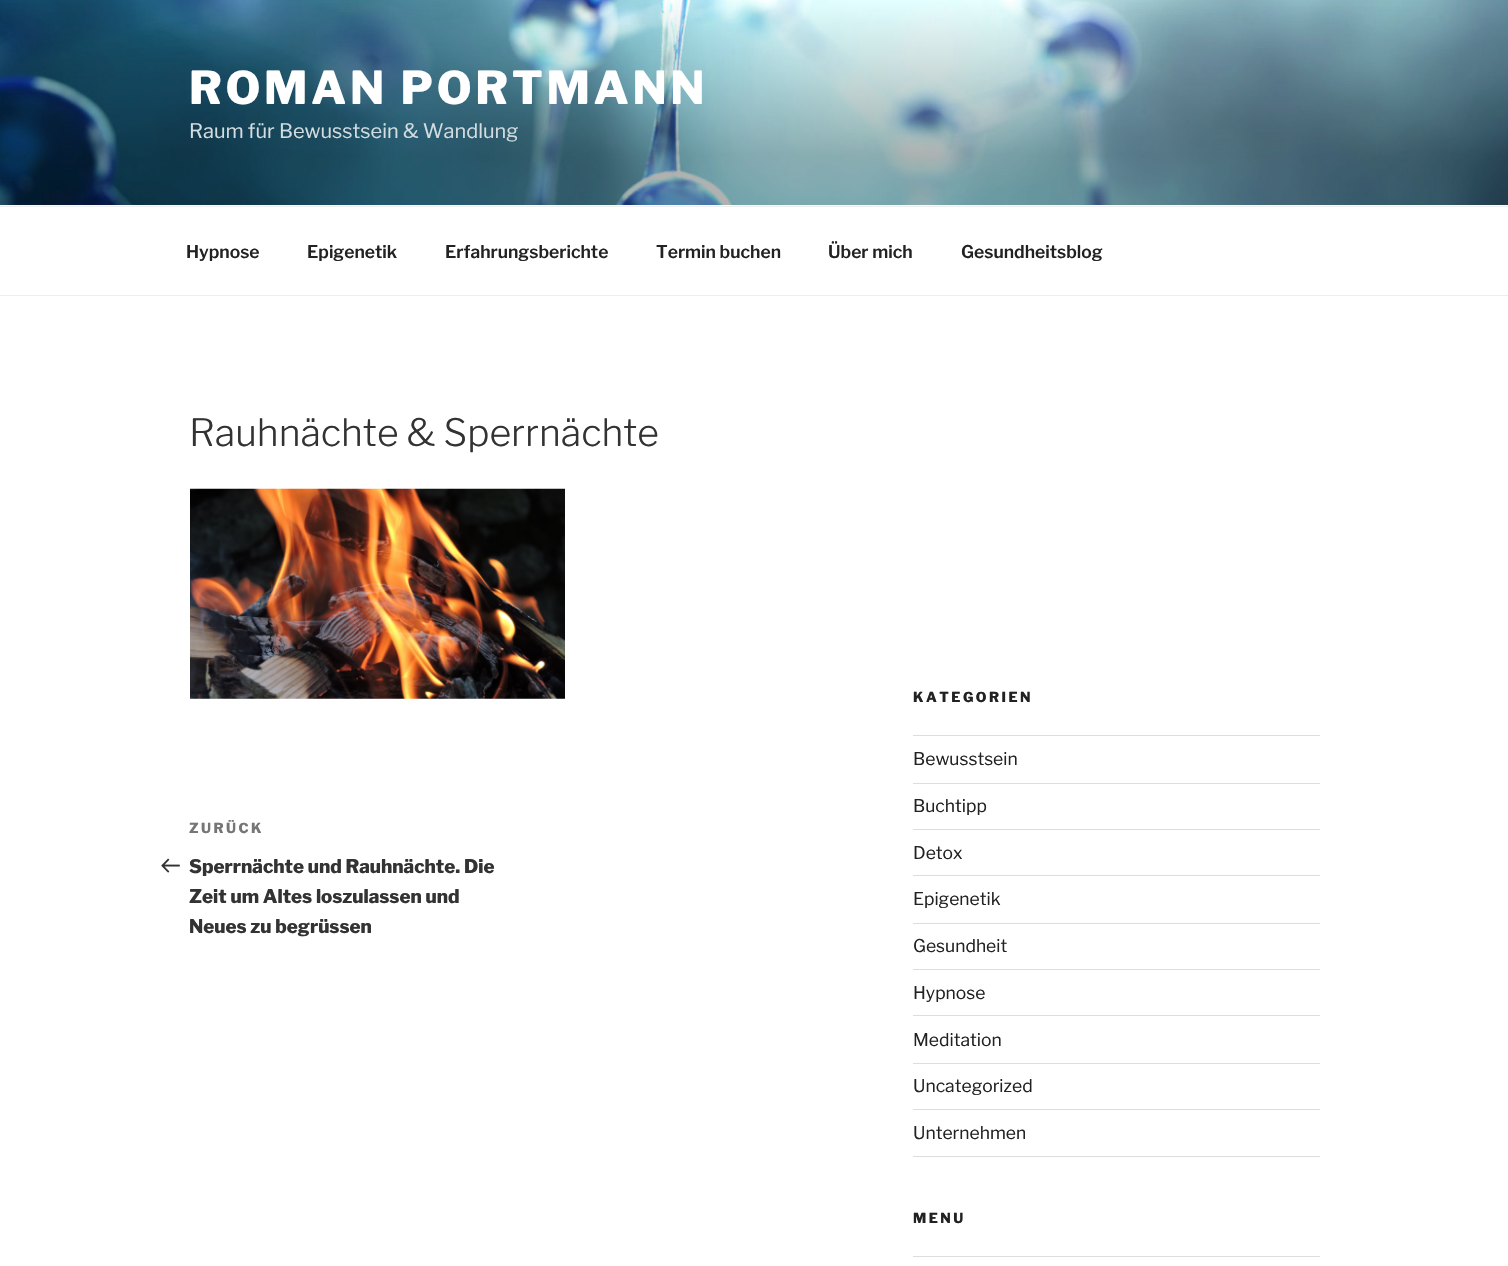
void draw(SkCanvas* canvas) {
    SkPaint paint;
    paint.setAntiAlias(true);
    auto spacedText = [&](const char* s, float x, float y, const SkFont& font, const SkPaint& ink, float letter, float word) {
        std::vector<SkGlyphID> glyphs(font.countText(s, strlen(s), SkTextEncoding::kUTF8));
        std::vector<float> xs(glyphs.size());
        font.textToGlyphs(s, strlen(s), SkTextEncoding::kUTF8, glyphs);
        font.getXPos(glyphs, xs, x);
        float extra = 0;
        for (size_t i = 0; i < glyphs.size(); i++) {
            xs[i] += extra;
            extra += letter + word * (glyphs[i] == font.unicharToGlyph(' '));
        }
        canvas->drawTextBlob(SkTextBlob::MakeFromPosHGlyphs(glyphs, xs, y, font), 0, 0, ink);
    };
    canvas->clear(0xFFFFFFFF);
    paint.setColor(0xFFFAFAFA);
    canvas->drawRect(SkRect::MakeXYWH(0, 205, 1508, 1), paint);
    canvas->drawImageRect(SkImages::DeferredFromEncodedData(SkData::MakeFromFileName("img1.png")), SkRect::MakeXYWH(0, 0, 1508, 205), SkSamplingOptions());
    SkFont font1(fontMgr->matchFamilyStyle("Libre Franklin", SkFontStyle(100, SkFontStyle::kNormal_Width, SkFontStyle::kUpright_Slant)), 45);
    font1.setSubpixel(true);
    paint.setColor(0xFFFFFFFF);
    spacedText("ROMAN PORTMANN", 189, 104, font1, paint, 3.6f, 0);
    SkFont font2(fontMgr->matchFamilyStyle("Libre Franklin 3", SkFontStyle(100, SkFontStyle::kNormal_Width, SkFontStyle::kUpright_Slant)), 20);
    font2.setSubpixel(true);
    paint.setColor(0xFFD3DCE0);
    canvas->drawString("Raum für Bewusstsein & Wandlung", 189, 138, font2, paint);
    paint.setColor(0xFFEEEEEE);
    canvas->drawRect(SkRect::MakeXYWH(0, 206, 1508, 1), paint);
    canvas->drawRect(SkRect::MakeXYWH(0, 295, 1508, 1), paint);
    SkFont font3(fontMgr->matchFamilyStyle("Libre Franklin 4", SkFontStyle(100, SkFontStyle::kNormal_Width, SkFontStyle::kUpright_Slant)), 17.5f);
    font3.setSubpixel(true);
    paint.setColor(0xFF222222);
    canvas->drawString("Hypnose", 186, 258, font3, paint);
    canvas->drawString("Epigenetik", 307, 258, font3, paint);
    canvas->drawString("Erfahrungsberichte", 445, 258, font3, paint);
    canvas->drawString("Termin buchen", 656, 258, font3, paint);
    canvas->drawString("Über mich", 828, 258, font3, paint);
    canvas->drawString("Gesundheitsblog", 961, 258, font3, paint);
    SkFont font4(fontMgr->matchFamilyStyle("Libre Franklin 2", SkFontStyle(100, SkFontStyle::kNormal_Width, SkFontStyle::kUpright_Slant)), 37.5f);
    font4.setSubpixel(true);
    paint.setColor(0xFF333333);
    canvas->drawString("Rauhnächte & Sperrnächte", 189, 446, font4, paint);
    canvas->drawImageRect(SkImages::DeferredFromEncodedData(SkData::MakeFromFileName("img2.png")), SkRect::MakeXYWH(190, 488, 375, 211), SkSamplingOptions());
    SkFont font5(fontMgr->matchFamilyStyle("Libre Franklin", SkFontStyle(100, SkFontStyle::kNormal_Width, SkFontStyle::kUpright_Slant)), 13.75f);
    font5.setSubpixel(true);
    paint.setColor(0xFF767676);
    spacedText("ZURÜCK", 189, 833, font5, paint, 2.5f, 0);
    canvas->drawImageRect(SkImages::DeferredFromEncodedData(SkData::MakeFromFileName("img3.png")), SkRect::MakeXYWH(161, 858, 19, 15), SkSamplingOptions());
    SkFont font6(fontMgr->matchFamilyStyle("Libre Franklin", SkFontStyle(100, SkFontStyle::kNormal_Width, SkFontStyle::kUpright_Slant)), 18.75f);
    font6.setSubpixel(true);
    paint.setColor(0xFF333333);
    canvas->drawString("Sperrnächte und Rauhnächte. Die", 189, 873, font6, paint);
    canvas->drawString("Zeit um Altes loszulassen und", 189, 903, font6, paint);
    canvas->drawString("Neues zu begrüssen", 189, 933, font6, paint);
    paint.setColor(0xFF222222);
    spacedText("KATEGORIEN", 913, 702, font5, paint, 2.5f, 0);
    paint.setColor(0xFFDDDDDD);
    canvas->drawRect(SkRect::MakeXYWH(913, 735, 407, 1), paint);
    canvas->drawRect(SkRect::MakeXYWH(913, 783, 407, 1), paint);
    SkFont font7(fontMgr->matchFamilyStyle("Libre Franklin 3", SkFontStyle(100, SkFontStyle::kNormal_Width, SkFontStyle::kUpright_Slant)), 17.5f);
    font7.setSubpixel(true);
    paint.setColor(0xFF222222);
    canvas->drawString("Bewusstsein", 913, 765, font7, paint);
    paint.setColor(0xFFDDDDDD);
    canvas->drawRect(SkRect::MakeXYWH(913, 829, 407, 1), paint);
    paint.setColor(0xFF222222);
    canvas->drawString("Buchtipp", 913, 812, font7, paint);
    paint.setColor(0xFFDDDDDD);
    canvas->drawRect(SkRect::MakeXYWH(913, 875, 407, 1), paint);
    paint.setColor(0xFF222222);
    canvas->drawString("Detox", 913, 859, font7, paint);
    paint.setColor(0xFFDDDDDD);
    canvas->drawRect(SkRect::MakeXYWH(913, 923, 407, 1), paint);
    paint.setColor(0xFF222222);
    canvas->drawString("Epigenetik", 913, 905, font7, paint);
    paint.setColor(0xFFDDDDDD);
    canvas->drawRect(SkRect::MakeXYWH(913, 969, 407, 1), paint);
    paint.setColor(0xFF222222);
    canvas->drawString("Gesundheit", 913, 952, font7, paint);
    paint.setColor(0xFFDDDDDD);
    canvas->drawRect(SkRect::MakeXYWH(913, 1015, 407, 1), paint);
    paint.setColor(0xFF222222);
    canvas->drawString("Hypnose", 913, 999, font7, paint);
    paint.setColor(0xFFDDDDDD);
    canvas->drawRect(SkRect::MakeXYWH(913, 1063, 407, 1), paint);
    paint.setColor(0xFF222222);
    canvas->drawString("Meditation", 913, 1046, font7, paint);
    paint.setColor(0xFFDDDDDD);
    canvas->drawRect(SkRect::MakeXYWH(913, 1109, 407, 1), paint);
    paint.setColor(0xFF222222);
    canvas->drawString("Uncategorized", 913, 1092, font7, paint);
    paint.setColor(0xFFDDDDDD);
    canvas->drawRect(SkRect::MakeXYWH(913, 1156, 407, 1), paint);
    paint.setColor(0xFF222222);
    canvas->drawString("Unternehmen", 913, 1139, font7, paint);
    spacedText("MENU", 913, 1223, font5, paint, 2.5f, 0);
    paint.setColor(0xFFDDDDDD);
    canvas->drawRect(SkRect::MakeXYWH(913, 1256, 407, 1), paint);
}
